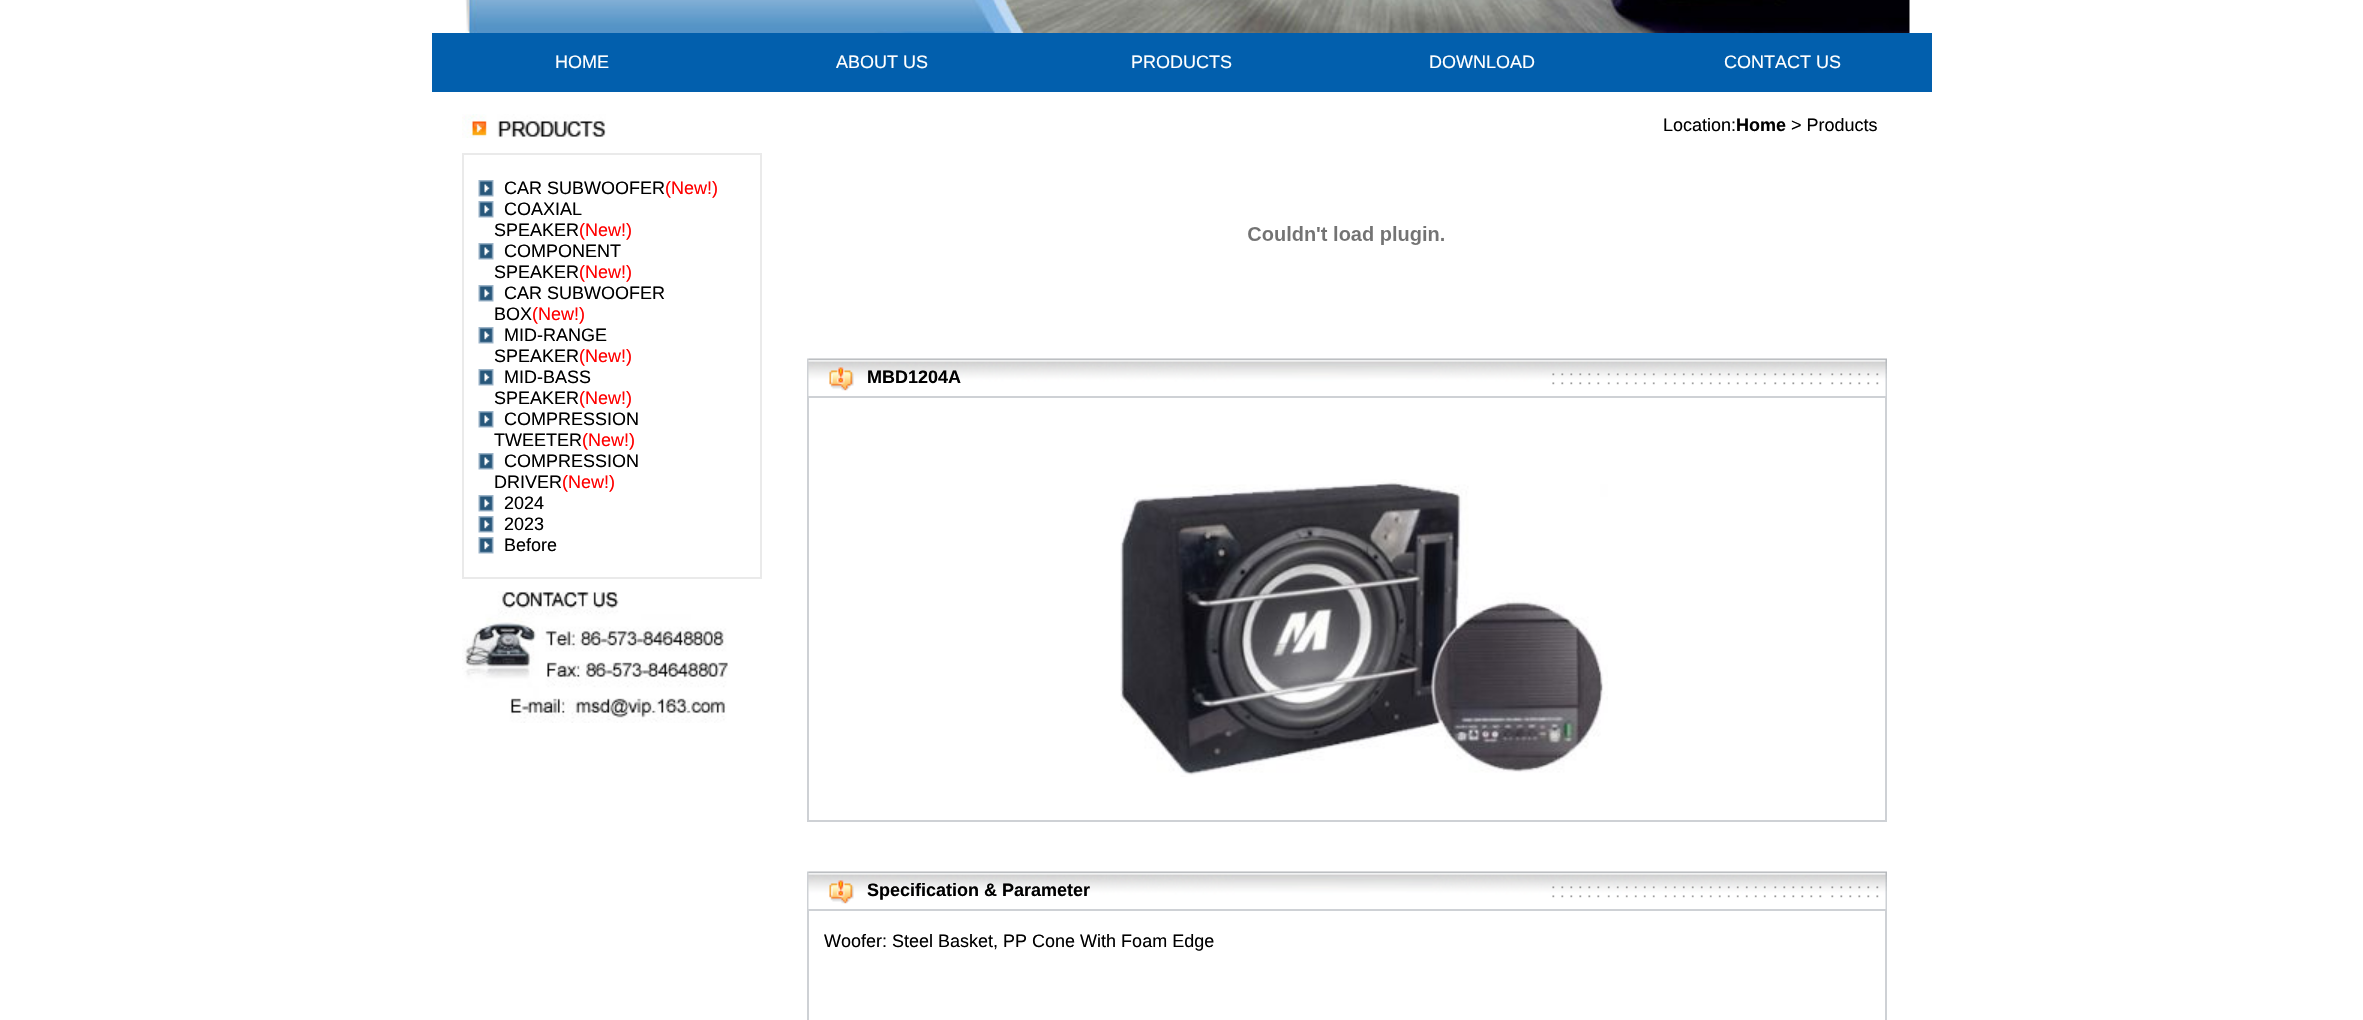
void draw(SkCanvas* canvas) {
    SkPaint paint;
    paint.setAntiAlias(true);
    canvas->clear(0xFFFFFFFF);
    canvas->drawImageRect(SkImages::DeferredFromEncodedData(SkData::MakeFromFileName("img1.png")), SkRect::MakeXYWH(465, 0, 1445, 33), SkSamplingOptions());
    paint.setColor(0xFF025FAD);
    canvas->drawRect(SkRect::MakeXYWH(432, 33, 1500, 59), paint);
    SkFont font1(fontMgr->matchFamilyStyle("Liberation Sans", SkFontStyle::Normal()), 18);
    font1.setSubpixel(true);
    paint.setColor(0xFFFFFFFF);
    canvas->drawString("HOME", 555, 68, font1, paint);
    canvas->drawString("ABOUT US", 836, 68, font1, paint);
    canvas->drawString("PRODUCTS", 1131, 68, font1, paint);
    canvas->drawString("DOWNLOAD", 1429, 68, font1, paint);
    canvas->drawString("CONTACT US", 1724, 68, font1, paint);
    canvas->drawImageRect(SkImages::DeferredFromEncodedData(SkData::MakeFromFileName("img2.png")), SkRect::MakeXYWH(462, 114, 144, 24), SkSamplingOptions());
    paint.setStyle(SkPaint::kStroke_Style);
    paint.setStrokeWidth(2);
    paint.setColor(0xFFEAEAEA);
    canvas->drawRect(SkRect::MakeXYWH(463, 154, 298, 424), paint);
    canvas->drawImageRect(SkImages::DeferredFromEncodedData(SkData::MakeFromFileName("img3.png")), SkRect::MakeXYWH(478, 180, 16, 17), SkSamplingOptions());
    paint.setStyle(SkPaint::kFill_Style);
    paint.setColor(0xFF000000);
    canvas->drawString("CAR SUBWOOFER", 504, 194, font1, paint);
    paint.setColor(0xFFFF0000);
    canvas->drawString("(New!)", 665, 194, font1, paint);
    canvas->drawImageRect(SkImages::DeferredFromEncodedData(SkData::MakeFromFileName("img3.png")), SkRect::MakeXYWH(478, 201, 16, 17), SkSamplingOptions());
    paint.setColor(0xFF000000);
    canvas->drawString("COAXIAL", 504, 215, font1, paint);
    canvas->drawString("SPEAKER", 494, 236, font1, paint);
    paint.setColor(0xFFFF0000);
    canvas->drawString("(New!)", 579, 236, font1, paint);
    canvas->drawImageRect(SkImages::DeferredFromEncodedData(SkData::MakeFromFileName("img3.png")), SkRect::MakeXYWH(478, 243, 16, 17), SkSamplingOptions());
    paint.setColor(0xFF000000);
    canvas->drawString("COMPONENT", 504, 257, font1, paint);
    canvas->drawString("SPEAKER", 494, 278, font1, paint);
    paint.setColor(0xFFFF0000);
    canvas->drawString("(New!)", 579, 278, font1, paint);
    canvas->drawImageRect(SkImages::DeferredFromEncodedData(SkData::MakeFromFileName("img3.png")), SkRect::MakeXYWH(478, 285, 16, 17), SkSamplingOptions());
    paint.setColor(0xFF000000);
    canvas->drawString("CAR SUBWOOFER", 504, 299, font1, paint);
    canvas->drawString("BOX", 494, 320, font1, paint);
    paint.setColor(0xFFFF0000);
    canvas->drawString("(New!)", 532, 320, font1, paint);
    canvas->drawImageRect(SkImages::DeferredFromEncodedData(SkData::MakeFromFileName("img3.png")), SkRect::MakeXYWH(478, 327, 16, 17), SkSamplingOptions());
    paint.setColor(0xFF000000);
    canvas->drawString("MID-RANGE", 504, 341, font1, paint);
    canvas->drawString("SPEAKER", 494, 362, font1, paint);
    paint.setColor(0xFFFF0000);
    canvas->drawString("(New!)", 579, 362, font1, paint);
    canvas->drawImageRect(SkImages::DeferredFromEncodedData(SkData::MakeFromFileName("img3.png")), SkRect::MakeXYWH(478, 369, 16, 17), SkSamplingOptions());
    paint.setColor(0xFF000000);
    canvas->drawString("MID-BASS", 504, 383, font1, paint);
    canvas->drawString("SPEAKER", 494, 404, font1, paint);
    paint.setColor(0xFFFF0000);
    canvas->drawString("(New!)", 579, 404, font1, paint);
    canvas->drawImageRect(SkImages::DeferredFromEncodedData(SkData::MakeFromFileName("img3.png")), SkRect::MakeXYWH(478, 411, 16, 17), SkSamplingOptions());
    paint.setColor(0xFF000000);
    canvas->drawString("COMPRESSION", 504, 425, font1, paint);
    canvas->drawString("TWEETER", 494, 446, font1, paint);
    paint.setColor(0xFFFF0000);
    canvas->drawString("(New!)", 582, 446, font1, paint);
    canvas->drawImageRect(SkImages::DeferredFromEncodedData(SkData::MakeFromFileName("img3.png")), SkRect::MakeXYWH(478, 453, 16, 17), SkSamplingOptions());
    paint.setColor(0xFF000000);
    canvas->drawString("COMPRESSION", 504, 467, font1, paint);
    canvas->drawString("DRIVER", 494, 488, font1, paint);
    paint.setColor(0xFFFF0000);
    canvas->drawString("(New!)", 562, 488, font1, paint);
    canvas->drawImageRect(SkImages::DeferredFromEncodedData(SkData::MakeFromFileName("img3.png")), SkRect::MakeXYWH(478, 495, 16, 17), SkSamplingOptions());
    paint.setColor(0xFF000000);
    canvas->drawString("2024", 504, 509, font1, paint);
    canvas->drawImageRect(SkImages::DeferredFromEncodedData(SkData::MakeFromFileName("img3.png")), SkRect::MakeXYWH(478, 516, 16, 17), SkSamplingOptions());
    canvas->drawString("2023", 504, 530, font1, paint);
    canvas->drawImageRect(SkImages::DeferredFromEncodedData(SkData::MakeFromFileName("img3.png")), SkRect::MakeXYWH(478, 537, 16, 17), SkSamplingOptions());
    canvas->drawString("Before", 504, 551, font1, paint);
    canvas->drawImageRect(SkImages::DeferredFromEncodedData(SkData::MakeFromFileName("img4.png")), SkRect::MakeXYWH(462, 591, 268, 132), SkSamplingOptions());
    canvas->drawString("Location:", 1663, 131, font1, paint);
    SkFont font2(fontMgr->matchFamilyStyle("Liberation Sans", SkFontStyle::Bold()), 18);
    font2.setSubpixel(true);
    canvas->drawString("Home", 1736, 131, font2, paint);
    canvas->drawString("> Products", 1791, 131, font1, paint);
    canvas->drawImageRect(SkImages::DeferredFromEncodedData(SkData::MakeFromFileName("img5.png")), SkRect::MakeXYWH(1248, 226, 196, 19), SkSamplingOptions());
    canvas->drawImageRect(SkImages::DeferredFromEncodedData(SkData::MakeFromFileName("img6.png")), SkRect::MakeXYWH(807, 358, 1080, 38), SkSamplingOptions());
    canvas->drawString("MBD1204A", 867, 383, font2, paint);
    paint.setStyle(SkPaint::kStroke_Style);
    paint.setColor(0xFFCED1D5);
    canvas->drawRect(SkRect::MakeXYWH(808, 397, 1078, 424), paint);
    canvas->drawImageRect(SkImages::DeferredFromEncodedData(SkData::MakeFromFileName("img7.png")), SkRect::MakeXYWH(1120, 479, 488, 298), SkSamplingOptions());
    canvas->drawImageRect(SkImages::DeferredFromEncodedData(SkData::MakeFromFileName("img6.png")), SkRect::MakeXYWH(807, 871, 1080, 38), SkSamplingOptions());
    paint.setStyle(SkPaint::kFill_Style);
    paint.setColor(0xFF000000);
    canvas->drawString("Specification & Parameter", 867, 896, font2, paint);
    paint.setStyle(SkPaint::kStroke_Style);
    paint.setColor(0xFFCED1D5);
    canvas->drawRect(SkRect::MakeXYWH(808, 910, 1078, 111), paint);
    paint.setStyle(SkPaint::kFill_Style);
    paint.setColor(0xFF000000);
    canvas->drawString("Woofer: Steel Basket, PP Cone With Foam Edge", 824, 947, font1, paint);
}
